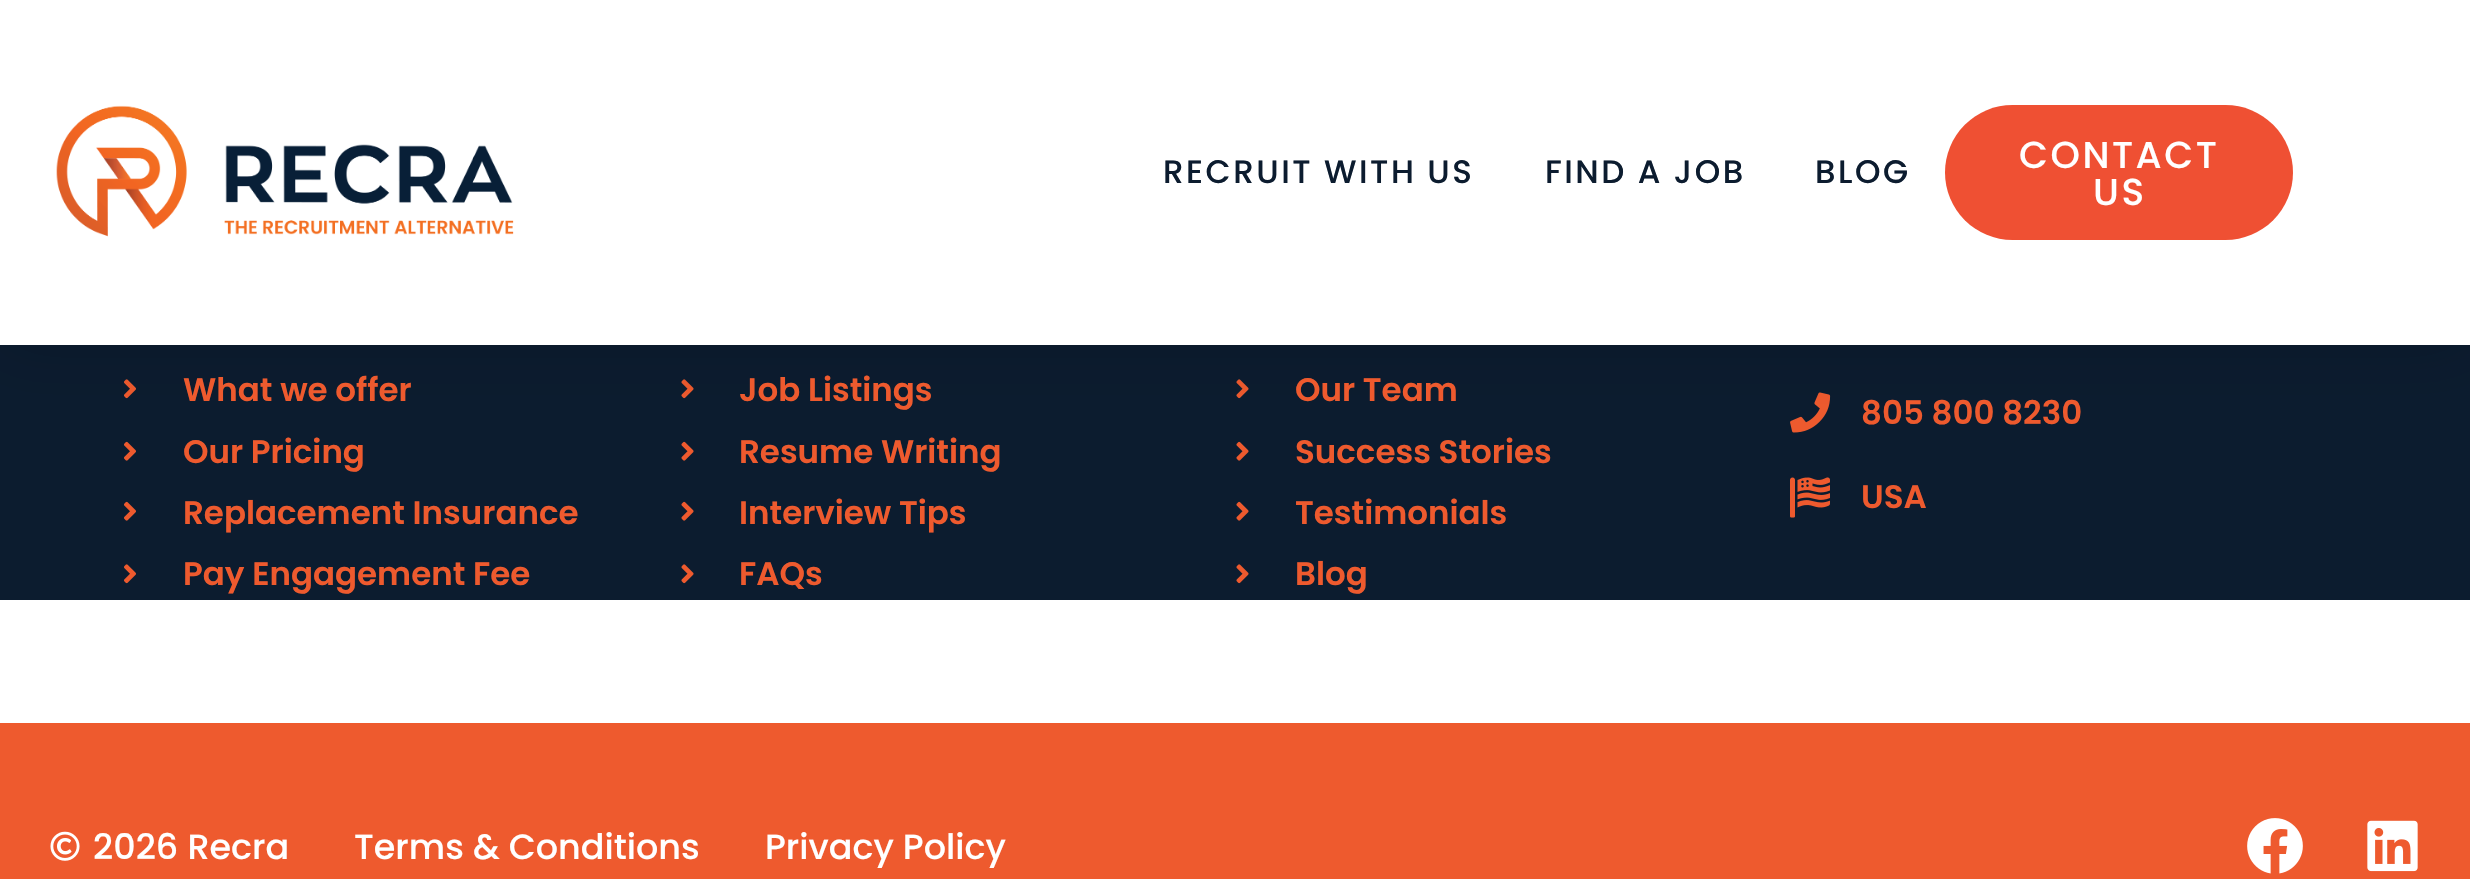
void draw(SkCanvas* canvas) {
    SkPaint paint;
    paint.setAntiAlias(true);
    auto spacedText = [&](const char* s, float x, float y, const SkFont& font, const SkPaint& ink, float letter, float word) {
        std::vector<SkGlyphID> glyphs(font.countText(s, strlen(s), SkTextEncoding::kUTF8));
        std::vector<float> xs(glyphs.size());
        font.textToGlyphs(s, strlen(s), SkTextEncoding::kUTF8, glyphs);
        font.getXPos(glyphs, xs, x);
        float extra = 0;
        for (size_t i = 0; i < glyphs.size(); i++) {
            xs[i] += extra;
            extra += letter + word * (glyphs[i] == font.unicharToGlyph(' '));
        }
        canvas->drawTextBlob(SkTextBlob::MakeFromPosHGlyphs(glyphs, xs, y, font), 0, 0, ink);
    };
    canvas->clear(0xFFFFFFFF);
    paint.setColor(0xFF0C1C2F);
    canvas->drawRect(SkRect::MakeXYWH(0, 345, 2470, 255), paint);
    canvas->drawImageRect(SkImages::DeferredFromEncodedData(SkData::MakeFromFileName("img2.png")), SkRect::MakeXYWH(124, 379, 12, 20), SkSamplingOptions());
    canvas->drawImageRect(SkImages::DeferredFromEncodedData(SkData::MakeFromFileName("img4.png")), SkRect::MakeXYWH(681, 379, 13, 20), SkSamplingOptions());
    canvas->drawImageRect(SkImages::DeferredFromEncodedData(SkData::MakeFromFileName("img4.png")), SkRect::MakeXYWH(1236, 379, 13, 20), SkSamplingOptions());
    canvas->drawImageRect(SkImages::DeferredFromEncodedData(SkData::MakeFromFileName("img6.png")), SkRect::MakeXYWH(1790, 392, 41, 41), SkSamplingOptions());
    paint.setColor(0x26000000);
    paint.setMaskFilter(SkMaskFilter::MakeBlur(kNormal_SkBlurStyle, 30));
    canvas->drawRect(SkRect::MakeXYWH(0, 0, 2470, 345), paint);
    paint.setMaskFilter(nullptr);
    paint.setColor(0xFFFFFFFF);
    canvas->drawRect(SkRect::MakeXYWH(0, 0, 2470, 345), paint);
    canvas->drawImageRect(SkImages::DeferredFromEncodedData(SkData::MakeFromFileName("img1.png")), SkRect::MakeXYWH(56, 105, 458, 132), SkSamplingOptions());
    SkFont font1(fontMgr->matchFamilyStyle("Poppins", SkFontStyle(500, SkFontStyle::kNormal_Width, SkFontStyle::kUpright_Slant)), 32.5f);
    font1.setSubpixel(true);
    paint.setColor(0xFF0C1C2F);
    spacedText("RECRUIT WITH US", 1163, 183, font1, paint, 2.5f, 0);
    spacedText("FIND A JOB", 1545, 183, font1, paint, 2.5f, 0);
    spacedText("BLOG", 1815, 183, font1, paint, 2.5f, 0);
    paint.setColor(0xFFEF5033);
    canvas->drawRoundRect(SkRect::MakeXYWH(1945, 105, 348, 135), 67.5f, 67.5f, paint);
    SkFont font2(fontMgr->matchFamilyStyle("Poppins", SkFontStyle(500, SkFontStyle::kNormal_Width, SkFontStyle::kUpright_Slant)), 37.5f);
    font2.setSubpixel(true);
    paint.setColor(0xFFFFFFFF);
    spacedText("CONTACT", 2019, 168, font2, paint, 2.5f, 0);
    spacedText("US", 2093, 205, font2, paint, 2.5f, 0);
    SkFont font3(fontMgr->matchFamilyStyle("Poppins", SkFontStyle(600, SkFontStyle::kNormal_Width, SkFontStyle::kUpright_Slant)), 32.5f);
    font3.setSubpixel(true);
    paint.setColor(0xFFEE5A2E);
    canvas->drawString("What we offer", 183, 401, font3, paint);
    canvas->drawImageRect(SkImages::DeferredFromEncodedData(SkData::MakeFromFileName("img3.png")), SkRect::MakeXYWH(124, 441, 12, 20), SkSamplingOptions());
    canvas->drawString("Our Pricing", 183, 463, font3, paint);
    canvas->drawImageRect(SkImages::DeferredFromEncodedData(SkData::MakeFromFileName("img3.png")), SkRect::MakeXYWH(124, 501, 12, 20), SkSamplingOptions());
    canvas->drawString("Replacement Insurance", 183, 524, font3, paint);
    canvas->drawImageRect(SkImages::DeferredFromEncodedData(SkData::MakeFromFileName("img2.png")), SkRect::MakeXYWH(124, 564, 12, 20), SkSamplingOptions());
    canvas->drawString("Pay Engagement Fee", 183, 585, font3, paint);
    canvas->drawString("Job Listings", 739, 401, font3, paint);
    canvas->drawImageRect(SkImages::DeferredFromEncodedData(SkData::MakeFromFileName("img5.png")), SkRect::MakeXYWH(681, 441, 13, 20), SkSamplingOptions());
    canvas->drawString("Resume Writing", 739, 463, font3, paint);
    canvas->drawImageRect(SkImages::DeferredFromEncodedData(SkData::MakeFromFileName("img5.png")), SkRect::MakeXYWH(681, 501, 13, 20), SkSamplingOptions());
    canvas->drawString("Interview Tips", 739, 524, font3, paint);
    canvas->drawImageRect(SkImages::DeferredFromEncodedData(SkData::MakeFromFileName("img4.png")), SkRect::MakeXYWH(681, 564, 13, 20), SkSamplingOptions());
    canvas->drawString("FAQs", 739, 585, font3, paint);
    canvas->drawString("Our Team", 1295, 401, font3, paint);
    canvas->drawImageRect(SkImages::DeferredFromEncodedData(SkData::MakeFromFileName("img5.png")), SkRect::MakeXYWH(1236, 441, 13, 20), SkSamplingOptions());
    canvas->drawString("Success Stories", 1295, 463, font3, paint);
    canvas->drawImageRect(SkImages::DeferredFromEncodedData(SkData::MakeFromFileName("img5.png")), SkRect::MakeXYWH(1236, 501, 13, 20), SkSamplingOptions());
    canvas->drawString("Testimonials", 1295, 524, font3, paint);
    canvas->drawImageRect(SkImages::DeferredFromEncodedData(SkData::MakeFromFileName("img4.png")), SkRect::MakeXYWH(1236, 564, 13, 20), SkSamplingOptions());
    canvas->drawString("Blog", 1295, 585, font3, paint);
    canvas->drawString("805 800 8230", 1861, 424, font3, paint);
    canvas->drawImageRect(SkImages::DeferredFromEncodedData(SkData::MakeFromFileName("img7.png")), SkRect::MakeXYWH(1790, 477, 40, 41), SkSamplingOptions());
    canvas->drawString("USA", 1861, 508, font3, paint);
    canvas->drawRect(SkRect::MakeXYWH(0, 723, 2470, 156), paint);
    canvas->drawImageRect(SkImages::DeferredFromEncodedData(SkData::MakeFromFileName("img8.png")), SkRect::MakeXYWH(50, 831, 30, 30), SkSamplingOptions());
    SkFont font4(fontMgr->matchFamilyStyle("Poppins", SkFontStyle(500, SkFontStyle::kNormal_Width, SkFontStyle::kUpright_Slant)), 35);
    font4.setSubpixel(true);
    paint.setColor(0xFFFFFFFF);
    canvas->drawString("2026 Recra", 93, 859, font4, paint);
    canvas->drawString("Terms & Conditions", 354, 859, font4, paint);
    canvas->drawString("Privacy Policy", 765, 859, font4, paint);
    canvas->drawImageRect(SkImages::DeferredFromEncodedData(SkData::MakeFromFileName("img9.png")), SkRect::MakeXYWH(2247, 818, 56, 56), SkSamplingOptions());
    canvas->drawImageRect(SkImages::DeferredFromEncodedData(SkData::MakeFromFileName("img10.png")), SkRect::MakeXYWH(2367, 820, 51, 52), SkSamplingOptions());
}
